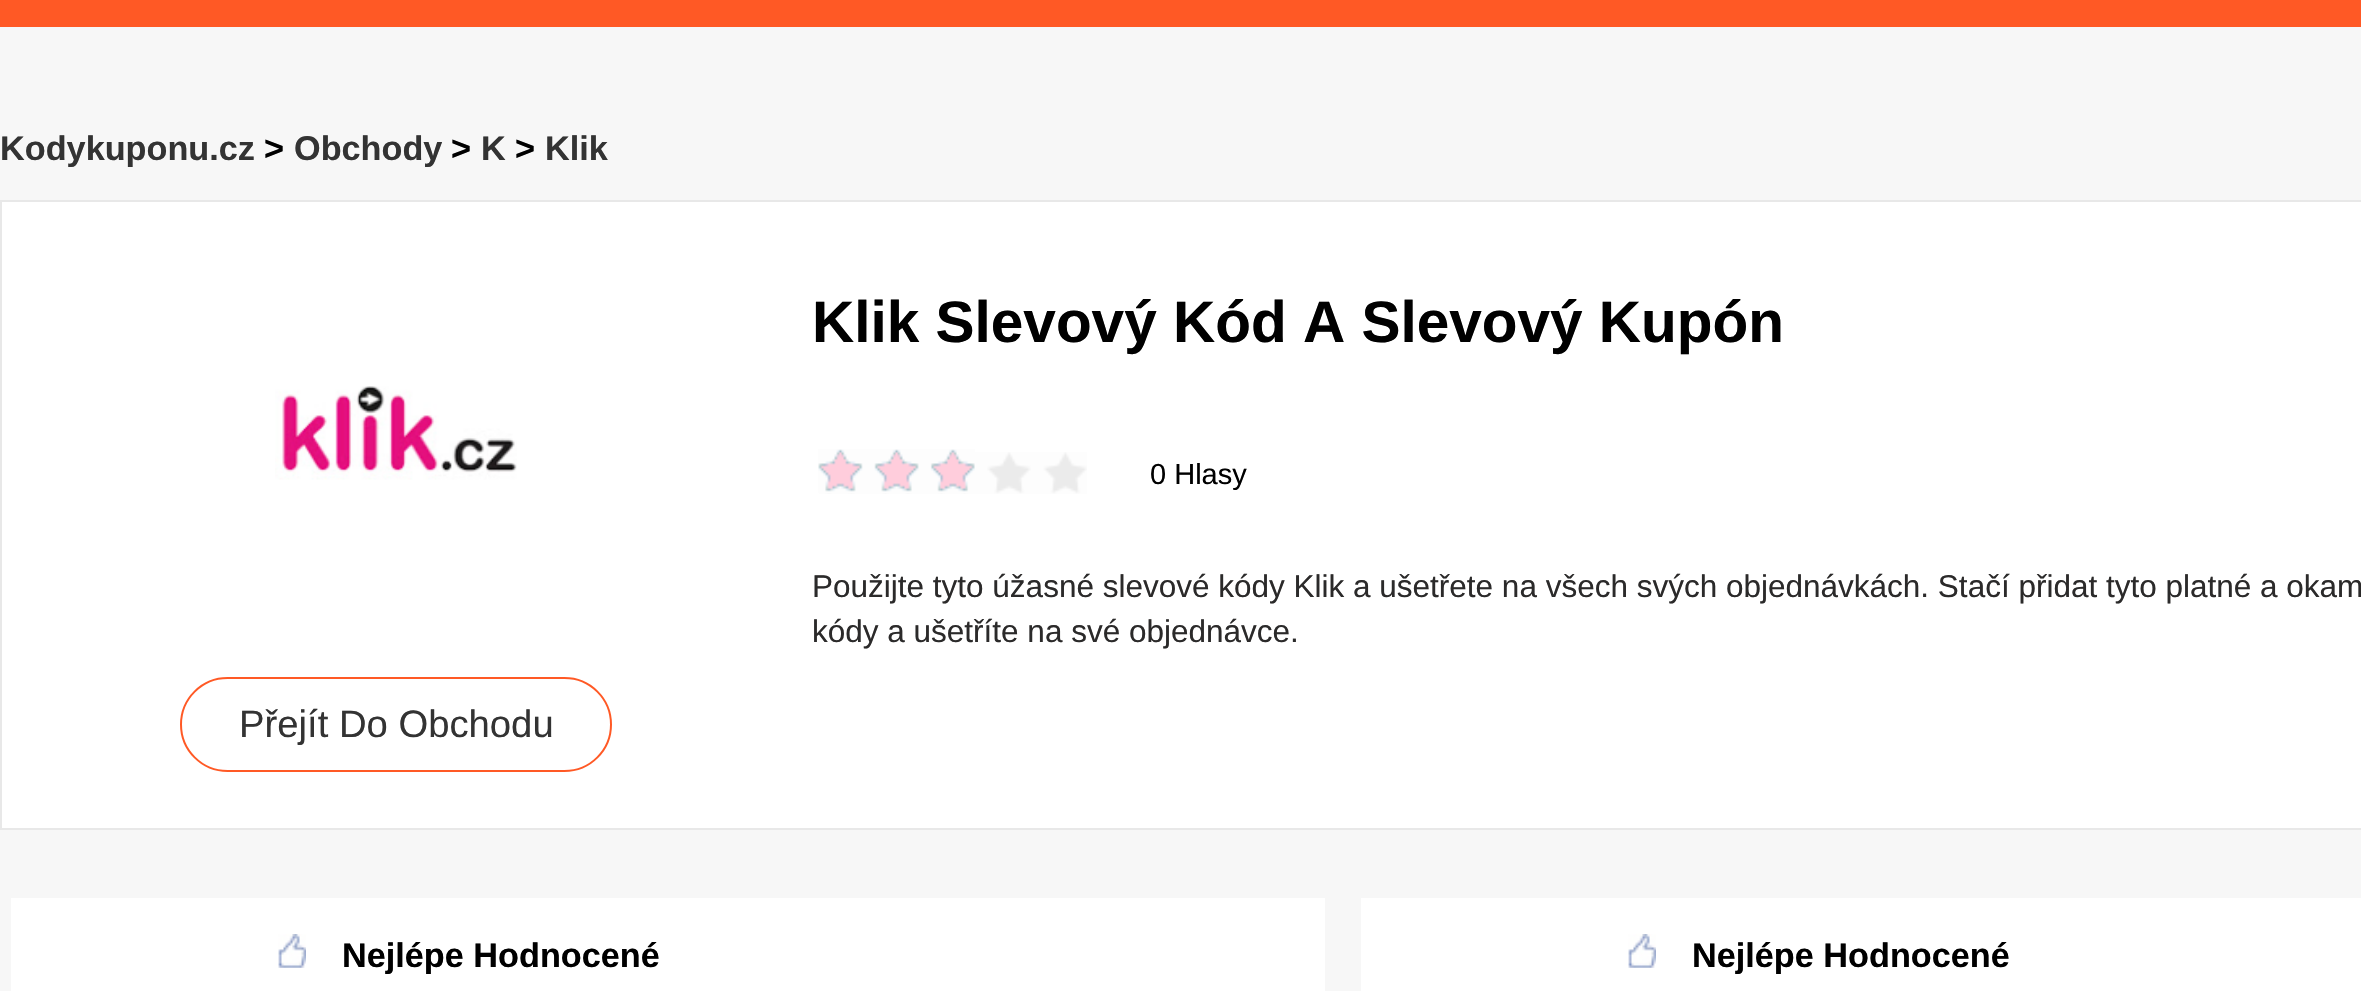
void draw(SkCanvas* canvas) {
    SkPaint paint;
    paint.setAntiAlias(true);
    canvas->clear(0xFFF7F7F7);
    paint.setColor(0xFFFF5925);
    canvas->drawRect(SkRect::MakeXYWH(0, 0, 2361, 27), paint);
    SkFont font1(fontMgr->matchFamilyStyle("Liberation Sans", SkFontStyle::Bold()), 34.25f);
    font1.setSubpixel(true);
    paint.setColor(0xFF333333);
    canvas->drawString("Kodykuponu.cz", 0, 160, font1, paint);
    paint.setColor(0xFF000000);
    canvas->drawString(">", 264, 160, font1, paint);
    paint.setColor(0xFF333333);
    canvas->drawString("Obchody", 294, 160, font1, paint);
    paint.setColor(0xFF000000);
    canvas->drawString(">", 451, 160, font1, paint);
    paint.setColor(0xFF333333);
    canvas->drawString("K", 481, 160, font1, paint);
    paint.setColor(0xFF000000);
    canvas->drawString(">", 515, 160, font1, paint);
    paint.setColor(0xFF333333);
    canvas->drawString("Klik", 545, 160, font1, paint);
    paint.setColor(0xFFFFFFFF);
    canvas->drawRect(SkRect::MakeXYWH(1, 201, 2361, 628), paint);
    paint.setStyle(SkPaint::kStroke_Style);
    paint.setStrokeWidth(2);
    paint.setColor(0xFFE8E8E8);
    canvas->drawRect(SkRect::MakeXYWH(1, 201, 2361, 628), paint);
    SkFont font2(fontMgr->matchFamilyStyle("Liberation Sans", SkFontStyle::Bold()), 58.5f);
    font2.setSubpixel(true);
    paint.setStyle(SkPaint::kFill_Style);
    paint.setColor(0xFF000000);
    canvas->drawString("Klik Slevový Kód A Slevový Kupón", 812, 342, font2, paint);
    canvas->drawImageRect(SkImages::DeferredFromEncodedData(SkData::MakeFromFileName("img1.png")), SkRect::MakeXYWH(819, 452, 268, 42), SkSamplingOptions());
    canvas->drawImageRect(SkImages::DeferredFromEncodedData(SkData::MakeFromFileName("img2.png")), SkRect::MakeXYWH(818, 449, 157, 44), SkSamplingOptions());
    SkFont font3(fontMgr->matchFamilyStyle("Liberation Sans", SkFontStyle::Normal()), 29);
    font3.setSubpixel(true);
    canvas->drawString("0 Hlasy", 1150, 484, font3, paint);
    SkFont font4(fontMgr->matchFamilyStyle("Liberation Sans", SkFontStyle::Normal()), 31.5f);
    font4.setSubpixel(true);
    paint.setColor(0xFF2B2A2A);
    canvas->drawString("Použijte tyto úžasné slevové kódy Klik a ušetřete na všech svých objednávkách. Stačí přidat tyto platné a okam", 812, 597, font4, paint);
    canvas->drawString("kódy a ušetříte na své objednávce.", 812, 642, font4, paint);
    canvas->drawImageRect(SkImages::DeferredFromEncodedData(SkData::MakeFromFileName("img3.png")), SkRect::MakeXYWH(275, 386, 242, 94), SkSamplingOptions());
    paint.setStyle(SkPaint::kStroke_Style);
    paint.setColor(0xFFFF5925);
    canvas->drawRoundRect(SkRect::MakeXYWH(181, 678, 430, 93), 46.5f, 46.5f, paint);
    SkFont font5(fontMgr->matchFamilyStyle("Liberation Sans", SkFontStyle::Normal()), 38.25f);
    font5.setSubpixel(true);
    paint.setStyle(SkPaint::kFill_Style);
    paint.setColor(0xFF333333);
    canvas->drawString("Přejít Do Obchodu", 239, 737, font5, paint);
    paint.setColor(0xFFFFFFFF);
    canvas->drawRect(SkRect::MakeXYWH(11, 898, 1314, 93), paint);
    canvas->drawImageRect(SkImages::DeferredFromEncodedData(SkData::MakeFromFileName("img4.png")), SkRect::MakeXYWH(278, 934, 28, 34), SkSamplingOptions());
    paint.setColor(0xFF000000);
    canvas->drawString("Nejlépe Hodnocené", 342, 967, font1, paint);
    paint.setColor(0xFFFFFFFF);
    canvas->drawRect(SkRect::MakeXYWH(1361, 898, 1000, 93), paint);
    canvas->drawImageRect(SkImages::DeferredFromEncodedData(SkData::MakeFromFileName("img4.png")), SkRect::MakeXYWH(1628, 934, 28, 34), SkSamplingOptions());
    paint.setColor(0xFF000000);
    canvas->drawString("Nejlépe Hodnocené", 1692, 967, font1, paint);
}
